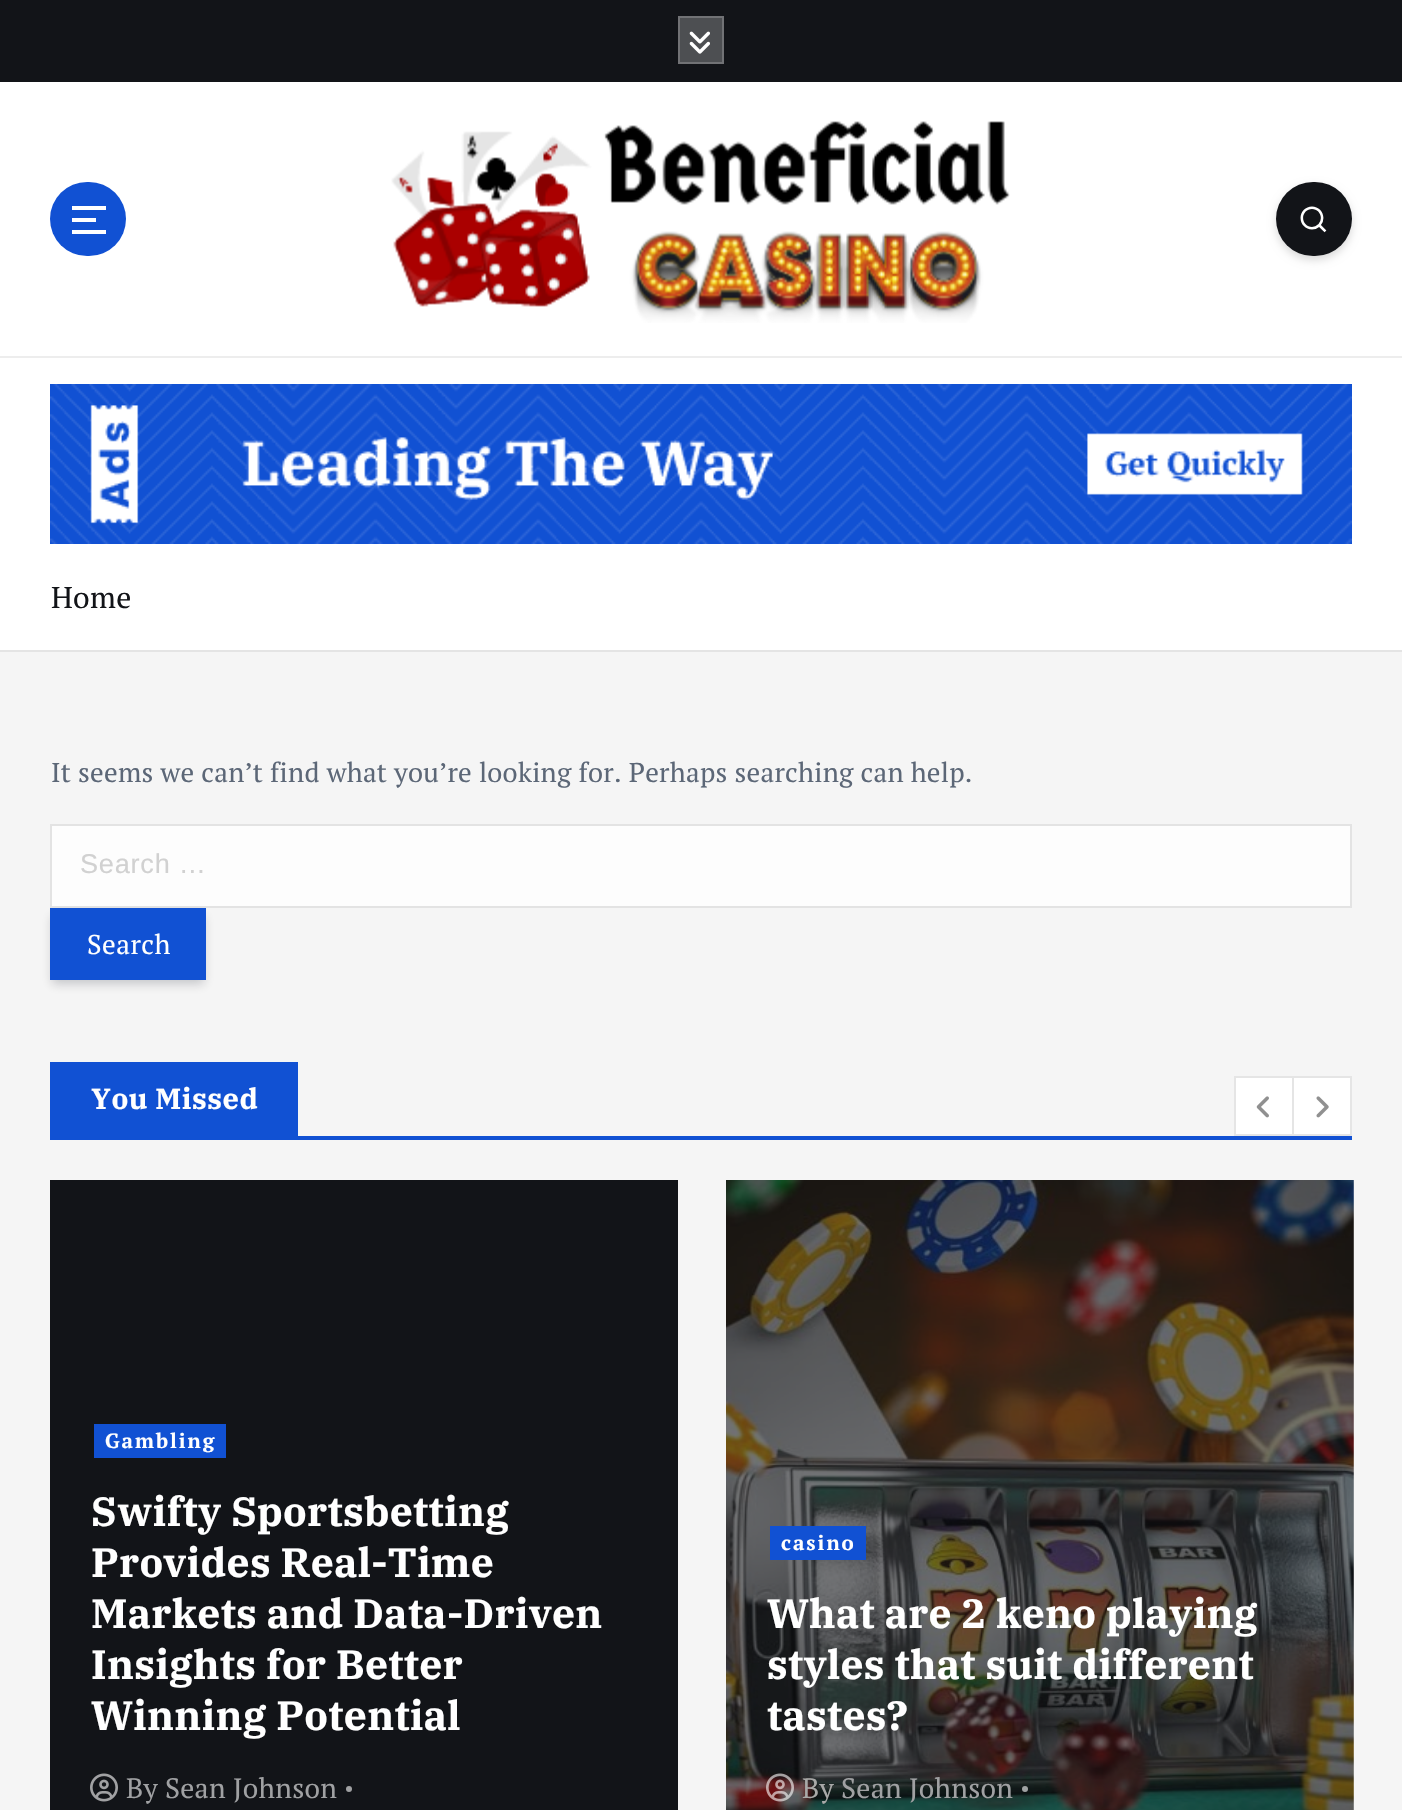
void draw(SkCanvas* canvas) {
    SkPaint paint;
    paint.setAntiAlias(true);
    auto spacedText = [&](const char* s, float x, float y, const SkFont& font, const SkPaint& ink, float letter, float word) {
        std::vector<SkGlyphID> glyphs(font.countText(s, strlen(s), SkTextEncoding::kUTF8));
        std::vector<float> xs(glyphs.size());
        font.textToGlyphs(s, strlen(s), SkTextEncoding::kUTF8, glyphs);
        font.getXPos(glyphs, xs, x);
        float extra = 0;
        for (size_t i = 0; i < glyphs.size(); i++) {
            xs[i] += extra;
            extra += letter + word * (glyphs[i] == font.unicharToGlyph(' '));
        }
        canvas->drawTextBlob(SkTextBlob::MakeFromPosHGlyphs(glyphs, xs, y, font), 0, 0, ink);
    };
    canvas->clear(0xFFF5F5F5);
    paint.setColor(0xFF121418);
    canvas->drawRect(SkRect::MakeXYWH(0, 0, 1402, 82), paint);
    paint.setColor(0xFF4D4F52);
    canvas->drawRect(SkRect::MakeXYWH(679, 17, 44, 46), paint);
    paint.setStyle(SkPaint::kStroke_Style);
    paint.setStrokeWidth(2);
    paint.setColor(0xFF717275);
    canvas->drawRect(SkRect::MakeXYWH(679, 17, 44, 46), paint);
    canvas->drawImageRect(SkImages::DeferredFromEncodedData(SkData::MakeFromFileName("img1.png")), SkRect::MakeXYWH(689, 31, 21, 23), SkSamplingOptions());
    paint.setStyle(SkPaint::kFill_Style);
    paint.setColor(0xFFFFFFFF);
    canvas->drawRect(SkRect::MakeXYWH(0, 82, 1402, 568), paint);
    paint.setColor(0xFFEDEDED);
    canvas->drawRect(SkRect::MakeXYWH(0, 356, 1402, 2), paint);
    paint.setColor(0xFF1151D3);
    canvas->drawRoundRect(SkRect::MakeXYWH(50, 182, 76, 74), 37, 37, paint);
    paint.setColor(0xFFFFFFFF);
    canvas->drawRect(SkRect::MakeXYWH(72, 206, 34, 4), paint);
    canvas->drawRect(SkRect::MakeXYWH(72, 218, 24, 4), paint);
    canvas->drawRect(SkRect::MakeXYWH(72, 230, 34, 4), paint);
    canvas->drawImageRect(SkImages::DeferredFromEncodedData(SkData::MakeFromFileName("img2.png")), SkRect::MakeXYWH(391, 121, 619, 202), SkSamplingOptions());
    paint.setColor(0x26000000);
    paint.setMaskFilter(SkMaskFilter::MakeBlur(kNormal_SkBlurStyle, 4));
    canvas->drawRoundRect(SkRect::MakeXYWH(1276, 186, 76, 74), 37, 37, paint);
    paint.setMaskFilter(nullptr);
    paint.setColor(0xFF121418);
    canvas->drawRoundRect(SkRect::MakeXYWH(1276, 182, 76, 74), 37, 37, paint);
    canvas->drawImageRect(SkImages::DeferredFromEncodedData(SkData::MakeFromFileName("img3.png")), SkRect::MakeXYWH(1300, 206, 27, 27), SkSamplingOptions());
    canvas->drawImageRect(SkImages::DeferredFromEncodedData(SkData::MakeFromFileName("img4.png")), SkRect::MakeXYWH(50, 384, 1302, 160), SkSamplingOptions());
    paint.setColor(0xFFE4E4E4);
    canvas->drawRect(SkRect::MakeXYWH(0, 650, 1402, 2), paint);
    SkFont font1(fontMgr->matchFamilyStyle("PT Serif", SkFontStyle::Normal()), 30);
    font1.setSubpixel(true);
    paint.setColor(0xFF121418);
    spacedText("Home", 51, 608, font1, paint, 0.27f, 0);
    SkFont font2(fontMgr->matchFamilyStyle("PT Serif", SkFontStyle::Normal()), 27.15f);
    font2.setSubpixel(true);
    paint.setColor(0xFF5C6777);
    spacedText("It seems we can’t find what you’re looking for. Perhaps searching can help.", 51, 782, font2, paint, 0.27f, 0);
    paint.setColor(0xFFFDFDFD);
    canvas->drawRect(SkRect::MakeXYWH(51, 825, 1300, 82), paint);
    paint.setStyle(SkPaint::kStroke_Style);
    paint.setColor(0xFFE3E3E3);
    canvas->drawRect(SkRect::MakeXYWH(51, 825, 1300, 82), paint);
    SkFont font3(fontMgr->matchFamilyStyle("Liberation Sans", SkFontStyle::Normal()), 27.15f);
    font3.setSubpixel(true);
    paint.setStyle(SkPaint::kFill_Style);
    paint.setColor(0xFFD1D1D1);
    spacedText("Search …", 80, 873, font3, paint, 0.75f, 0);
    paint.setColor(0x33070A19);
    paint.setMaskFilter(SkMaskFilter::MakeBlur(kNormal_SkBlurStyle, 5));
    canvas->drawRect(SkRect::MakeXYWH(52, 916, 152, 68), paint);
    paint.setMaskFilter(nullptr);
    paint.setColor(0xFF1151D3);
    canvas->drawRect(SkRect::MakeXYWH(50, 908, 156, 72), paint);
    paint.setColor(0xFFFFFFFF);
    spacedText("Search", 87, 954, font2, paint, 0.5f, 0);
    paint.setColor(0xFF1151D3);
    canvas->drawRect(SkRect::MakeXYWH(50, 1136, 1302, 4), paint);
    canvas->drawRect(SkRect::MakeXYWH(50, 1062, 248, 74), paint);
    SkFont font4(fontMgr->matchFamilyStyle("IBM Plex Serif", SkFontStyle::Bold()), 29);
    font4.setSubpixel(true);
    paint.setColor(0xFFFFFFFF);
    spacedText("You Missed", 91, 1109, font4, paint, 0.5f, 0);
    canvas->drawRect(SkRect::MakeXYWH(1235, 1077, 58, 58), paint);
    paint.setStyle(SkPaint::kStroke_Style);
    paint.setColor(0xFFE5E5E5);
    canvas->drawRect(SkRect::MakeXYWH(1235, 1077, 58, 58), paint);
    canvas->drawImageRect(SkImages::DeferredFromEncodedData(SkData::MakeFromFileName("img5.png")), SkRect::MakeXYWH(1256, 1096, 13, 22), SkSamplingOptions());
    paint.setStyle(SkPaint::kFill_Style);
    paint.setColor(0xFFFFFFFF);
    canvas->drawRect(SkRect::MakeXYWH(1293, 1077, 58, 58), paint);
    paint.setStyle(SkPaint::kStroke_Style);
    paint.setColor(0xFFE5E5E5);
    canvas->drawRect(SkRect::MakeXYWH(1293, 1077, 58, 58), paint);
    canvas->drawImageRect(SkImages::DeferredFromEncodedData(SkData::MakeFromFileName("img6.png")), SkRect::MakeXYWH(1316, 1096, 13, 22), SkSamplingOptions());
    paint.setStyle(SkPaint::kFill_Style);
    paint.setColor(0xFF121418);
    canvas->drawRect(SkRect::MakeXYWH(50, 1180, 628, 630), paint);
    paint.setColor(0xFF1151D3);
    canvas->drawRect(SkRect::MakeXYWH(94, 1424, 132, 34), paint);
    SkFont font5(fontMgr->matchFamilyStyle("PT Serif", SkFontStyle::Bold()), 20.5f);
    font5.setSubpixel(true);
    paint.setColor(0xFFFFFFFF);
    spacedText("Gambling", 105, 1448, font5, paint, 2, 0);
    SkFont font6(fontMgr->matchFamilyStyle("IBM Plex Serif", SkFontStyle::Bold()), 40.75f);
    font6.setSubpixel(true);
    spacedText("Swifty Sportsbetting", 91, 1526, font6, paint, 0.27f, 0);
    spacedText("Provides Real-Time", 91, 1577, font6, paint, 0.27f, 0);
    spacedText("Markets and Data-Driven", 91, 1628, font6, paint, 0.27f, 0);
    spacedText("Insights for Better", 91, 1679, font6, paint, 0.27f, 0);
    spacedText("Winning Potential", 91, 1730, font6, paint, 0.27f, 0);
    canvas->drawImageRect(SkImages::DeferredFromEncodedData(SkData::MakeFromFileName("img7.png")), SkRect::MakeXYWH(90, 1773, 28, 29), SkSamplingOptions());
    SkFont font7(fontMgr->matchFamilyStyle("PT Serif", SkFontStyle::Normal()), 28);
    font7.setSubpixel(true);
    paint.setColor(0xFFA0A1A3);
    spacedText("By Sean Johnson", 126, 1798, font7, paint, 0.27f, 0);
    canvas->drawCircle(349, 1789, 3, paint);
    canvas->drawImageRect(SkImages::DeferredFromEncodedData(SkData::MakeFromFileName("img8.png")), SkRect::MakeXYWH(726, 1180, 628, 630), SkSamplingOptions());
    paint.setColor(0xFF1151D3);
    canvas->drawRect(SkRect::MakeXYWH(770, 1526, 96, 34), paint);
    paint.setColor(0xFFFFFFFF);
    spacedText("casino", 781, 1550, font5, paint, 2, 0);
    spacedText("What are 2 keno playing", 767, 1628, font6, paint, 0.27f, 0);
    spacedText("styles that suit different", 767, 1679, font6, paint, 0.27f, 0);
    spacedText("tastes?", 767, 1730, font6, paint, 0.27f, 0);
    canvas->drawImageRect(SkImages::DeferredFromEncodedData(SkData::MakeFromFileName("img9.png")), SkRect::MakeXYWH(766, 1773, 28, 29), SkSamplingOptions());
    paint.setColor(0xFFA9A9A8);
    spacedText("By", 802, 1798, font7, paint, 0.27f, 0);
    paint.setColor(0xFFA0A1A3);
    spacedText("Sean Johnson", 841, 1798, font7, paint, 0.27f, 0);
    paint.setColor(0x99FFFFFF);
    canvas->drawCircle(1025, 1789, 3, paint);
}
